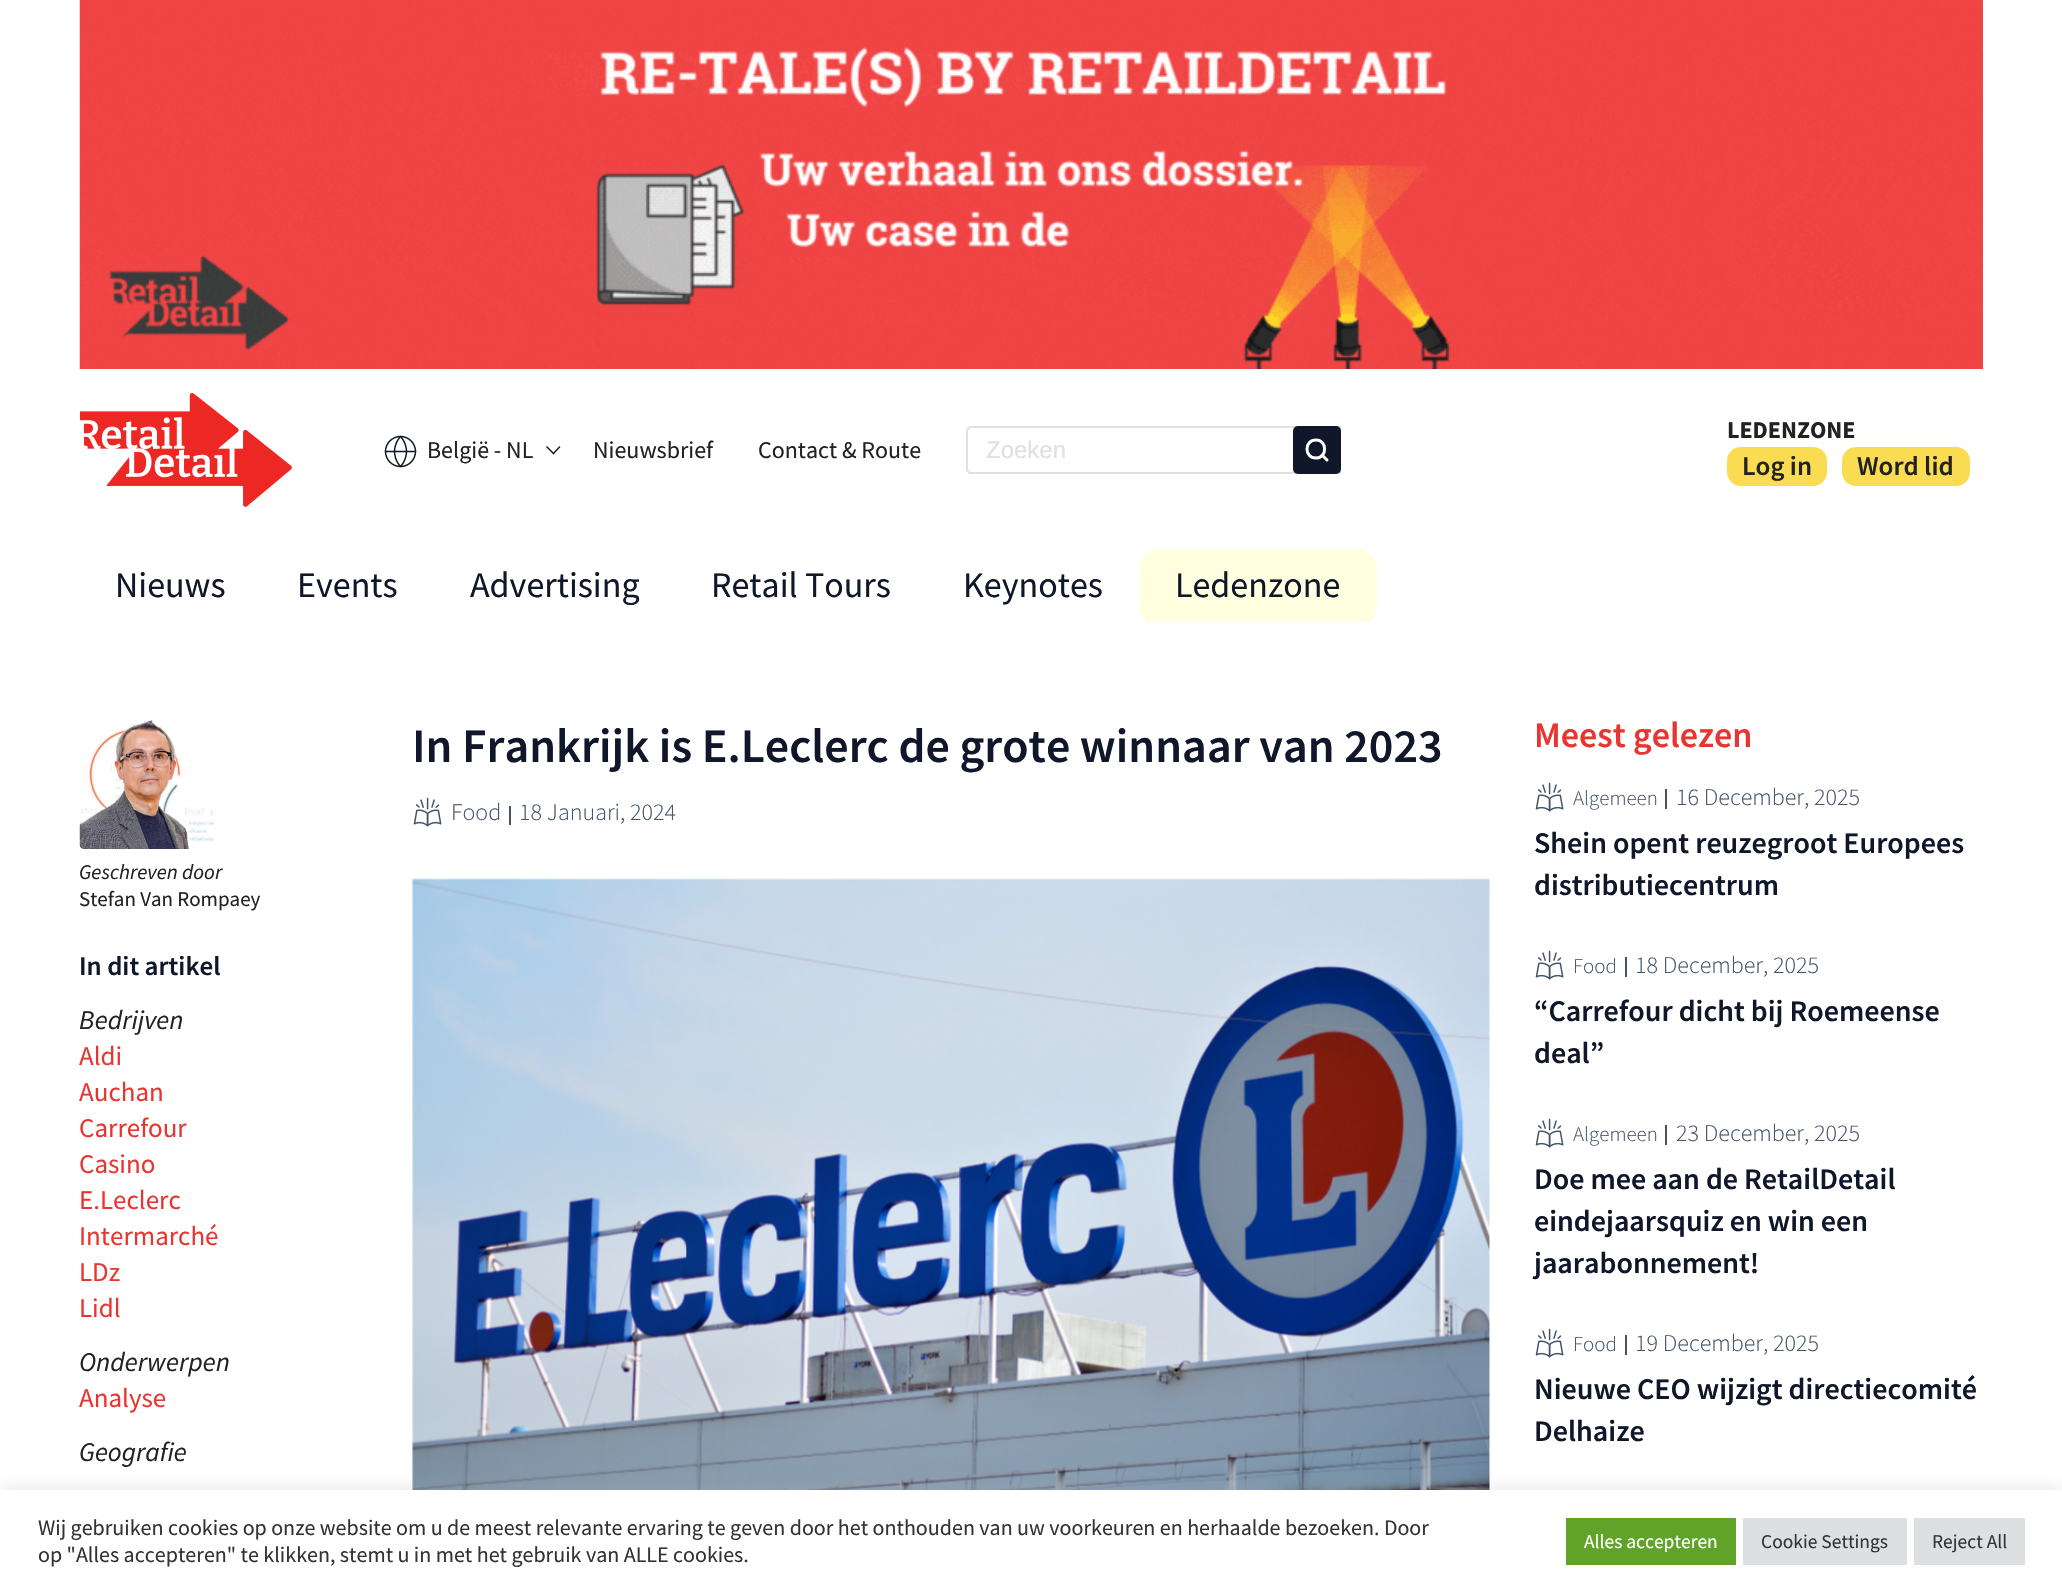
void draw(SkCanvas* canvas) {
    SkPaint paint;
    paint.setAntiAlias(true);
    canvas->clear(0xFFFFFFFF);
    canvas->drawImageRect(SkImages::DeferredFromEncodedData(SkData::MakeFromFileName("img1.png")), SkRect::MakeXYWH(79, 0, 1904, 369), SkSamplingOptions());
    canvas->drawImageRect(SkImages::DeferredFromEncodedData(SkData::MakeFromFileName("img2.png")), SkRect::MakeXYWH(80, 393, 212, 114), SkSamplingOptions());
    canvas->drawImageRect(SkImages::DeferredFromEncodedData(SkData::MakeFromFileName("img3.png")), SkRect::MakeXYWH(384, 435, 33, 33), SkSamplingOptions());
    SkFont font1(fontMgr->matchFamilyStyle("Source Sans Pro", SkFontStyle::Normal()), 24);
    font1.setSubpixel(true);
    paint.setColor(0xFF222222);
    canvas->drawString("België - NL", 427, 458, font1, paint);
    paint.setColor(0xFF10172A);
    canvas->drawPath(SkPathBuilder().moveTo(560.5f, 447).lineTo(553.5f, 454.5f).lineTo(552.5f, 453.5f).lineTo(559.5f, 446).close().detach(), paint);
    canvas->drawPath(SkPathBuilder().moveTo(554.5f, 453.5f).lineTo(553.5f, 454.5f).lineTo(546, 447).lineTo(547, 446).close().detach(), paint);
    paint.setColor(0xFF222222);
    canvas->drawString("Nieuwsbrief", 593, 458, font1, paint);
    canvas->drawString("Contact & Route", 758, 458, font1, paint);
    paint.setStyle(SkPaint::kStroke_Style);
    paint.setStrokeWidth(2);
    paint.setColor(0xFFE0E0E0);
    canvas->drawPath(SkPathBuilder().moveTo(971, 427).lineTo(1340, 427).lineTo(1340, 473).lineTo(971, 473).cubicTo(969, 473, 967, 471, 967, 469).lineTo(967, 431).cubicTo(967, 429, 969, 427, 971, 427).close().detach(), paint);
    SkFont font2(fontMgr->matchFamilyStyle("Liberation Sans", SkFontStyle::Normal()), 24);
    font2.setSubpixel(true);
    paint.setStyle(SkPaint::kFill_Style);
    canvas->drawString("Zoeken", 986, 458, font2, paint);
    paint.setColor(0xFF10172A);
    canvas->drawRoundRect(SkRect::MakeXYWH(1293, 426, 48, 48), 5, 5, paint);
    paint.setStyle(SkPaint::kStroke_Style);
    paint.setStrokeWidth(3);
    paint.setStrokeCap(SkPaint::kRound_Cap);
    paint.setStrokeJoin(SkPaint::kRound_Join);
    paint.setColor(0xFFFFFFFF);
    canvas->drawPath(SkPathBuilder().moveTo(1316, 458).cubicTo(1327.5f, 458, 1327.5f, 440, 1316, 440).cubicTo(1304, 440, 1304, 458, 1316, 458).close().moveTo(1327, 460).lineTo(1322, 455).detach(), paint);
    SkFont font3(fontMgr->matchFamilyStyle("Source Sans Pro", SkFontStyle::Bold()), 24);
    font3.setSubpixel(true);
    paint.setStyle(SkPaint::kFill_Style);
    paint.setColor(0xFF222222);
    canvas->drawString("LEDENZONE", 1727, 438, font3, paint);
    paint.setColor(0xFFFADC53);
    canvas->drawRoundRect(SkRect::MakeXYWH(1727, 447, 100, 39), 14, 14, paint);
    SkFont font4(fontMgr->matchFamilyStyle("Source Sans Pro", SkFontStyle(600, SkFontStyle::kNormal_Width, SkFontStyle::kUpright_Slant)), 27);
    font4.setSubpixel(true);
    paint.setColor(0xFF222222);
    canvas->drawString("Log in", 1742, 475, font4, paint);
    paint.setColor(0xFFFADC53);
    canvas->drawRoundRect(SkRect::MakeXYWH(1842, 447, 128, 39), 14, 14, paint);
    paint.setColor(0xFF222222);
    canvas->drawString("Word lid", 1857, 475, font4, paint);
    SkFont font5(fontMgr->matchFamilyStyle("Source Sans Pro", SkFontStyle::Normal()), 36);
    font5.setSubpixel(true);
    paint.setColor(0xFF10172A);
    canvas->drawString("Nieuws", 115, 597, font5, paint);
    canvas->drawString("Events", 297, 597, font5, paint);
    canvas->drawString("Advertising", 470, 597, font5, paint);
    canvas->drawString("Retail Tours", 711, 597, font5, paint);
    canvas->drawString("Keynotes", 963, 597, font5, paint);
    paint.setColor(0xFFFFFFE0);
    canvas->drawRoundRect(SkRect::MakeXYWH(1139, 549, 238, 78), 21, 21, paint);
    paint.setColor(0xFFFFFFFF);
    canvas->drawRect(SkRect::MakeXYWH(1149, 621, 218, 6), paint);
    paint.setColor(0xFF10172A);
    canvas->drawString("Ledenzone", 1175, 597, font5, paint);
    SkFont font6(fontMgr->matchFamilyStyle("Source Sans Pro", SkFontStyle(600, SkFontStyle::kNormal_Width, SkFontStyle::kUpright_Slant)), 48);
    font6.setSubpixel(true);
    canvas->drawString("In Frankrijk is E.Leclerc de grote winnaar van 2023", 412, 762, font6, paint);
    canvas->drawImageRect(SkImages::DeferredFromEncodedData(SkData::MakeFromFileName("img4.png")), SkRect::MakeXYWH(413, 797, 29, 30), SkSamplingOptions());
    SkFont font7(fontMgr->matchFamilyStyle("Source Sans Pro", SkFontStyle(300, SkFontStyle::kNormal_Width, SkFontStyle::kUpright_Slant)), 24);
    font7.setSubpixel(true);
    paint.setColor(0xFF465568);
    canvas->drawString("Food", 451, 820, font7, paint);
    canvas->drawRect(SkRect::MakeXYWH(509, 806, 2, 19), paint);
    canvas->drawString("18 Januari, 2024", 519, 820, font7, paint);
    canvas->drawImageRect(SkImages::DeferredFromEncodedData(SkData::MakeFromFileName("img5.png")), SkRect::MakeXYWH(412, 878, 1078, 612), SkSamplingOptions());
    canvas->drawImageRect(SkImages::DeferredFromEncodedData(SkData::MakeFromFileName("img6.png")), SkRect::MakeXYWH(79, 719, 136, 130), SkSamplingOptions());
    SkFont font8(fontMgr->matchFamilyStyle("Source Sans Pro", SkFontStyle::Italic()), 21);
    font8.setSubpixel(true);
    paint.setColor(0xFF222222);
    canvas->drawString("Geschreven door", 79, 879, font8, paint);
    SkFont font9(fontMgr->matchFamilyStyle("Source Sans Pro", SkFontStyle::Normal()), 21);
    font9.setSubpixel(true);
    canvas->drawString("Stefan Van Rompaey", 79, 906, font9, paint);
    paint.setColor(0xFF10172A);
    canvas->drawString("In dit artikel", 79, 975, font4, paint);
    SkFont font10(fontMgr->matchFamilyStyle("Source Sans Pro", SkFontStyle::Italic()), 27);
    font10.setSubpixel(true);
    paint.setColor(0xFF222222);
    canvas->drawString("Bedrijven", 79, 1029, font10, paint);
    SkFont font11(fontMgr->matchFamilyStyle("Source Sans Pro", SkFontStyle::Normal()), 27);
    font11.setSubpixel(true);
    paint.setColor(0xFFE93530);
    canvas->drawString("Aldi", 79, 1065, font11, paint);
    canvas->drawString("Auchan", 79, 1101, font11, paint);
    canvas->drawString("Carrefour", 79, 1137, font11, paint);
    canvas->drawString("Casino", 79, 1173, font11, paint);
    canvas->drawString("E.Leclerc", 79, 1209, font11, paint);
    canvas->drawString("Intermarché", 79, 1245, font11, paint);
    canvas->drawString("LDz", 79, 1281, font11, paint);
    canvas->drawString("Lidl", 79, 1317, font11, paint);
    paint.setColor(0xFF222222);
    canvas->drawString("Onderwerpen", 79, 1371, font10, paint);
    paint.setColor(0xFFE93530);
    canvas->drawString("Analyse", 79, 1407, font11, paint);
    paint.setColor(0xFF222222);
    canvas->drawString("Geografie", 79, 1461, font10, paint);
    SkFont font12(fontMgr->matchFamilyStyle("Source Sans Pro", SkFontStyle(600, SkFontStyle::kNormal_Width, SkFontStyle::kUpright_Slant)), 36);
    font12.setSubpixel(true);
    paint.setColor(0xFFE93530);
    canvas->drawString("Meest gelezen", 1534, 747, font12, paint);
    canvas->drawImageRect(SkImages::DeferredFromEncodedData(SkData::MakeFromFileName("img4.png")), SkRect::MakeXYWH(1535, 782, 29, 30), SkSamplingOptions());
    SkFont font13(fontMgr->matchFamilyStyle("Source Sans Pro", SkFontStyle(300, SkFontStyle::kNormal_Width, SkFontStyle::kUpright_Slant)), 21);
    font13.setSubpixel(true);
    paint.setColor(0xFF465568);
    canvas->drawString("Algemeen", 1573, 805, font13, paint);
    canvas->drawRect(SkRect::MakeXYWH(1665, 789, 2, 20), paint);
    canvas->drawString("16 December, 2025", 1676, 805, font7, paint);
    SkFont font14(fontMgr->matchFamilyStyle("Source Sans Pro", SkFontStyle(600, SkFontStyle::kNormal_Width, SkFontStyle::kUpright_Slant)), 30);
    font14.setSubpixel(true);
    paint.setColor(0xFF10172A);
    canvas->drawString("Shein opent reuzegroot Europees", 1534, 853, font14, paint);
    canvas->drawString("distributiecentrum", 1534, 895, font14, paint);
    canvas->drawImageRect(SkImages::DeferredFromEncodedData(SkData::MakeFromFileName("img4.png")), SkRect::MakeXYWH(1535, 950, 29, 30), SkSamplingOptions());
    paint.setColor(0xFF465568);
    canvas->drawString("Food", 1573, 973, font13, paint);
    canvas->drawRect(SkRect::MakeXYWH(1625, 957, 2, 20), paint);
    canvas->drawString("18 December, 2025", 1635, 973, font7, paint);
    paint.setColor(0xFF10172A);
    canvas->drawString("“Carrefour dicht bij Roemeense", 1534, 1021, font14, paint);
    canvas->drawString("deal”", 1534, 1063, font14, paint);
    canvas->drawImageRect(SkImages::DeferredFromEncodedData(SkData::MakeFromFileName("img4.png")), SkRect::MakeXYWH(1535, 1118, 29, 30), SkSamplingOptions());
    paint.setColor(0xFF465568);
    canvas->drawString("Algemeen", 1573, 1141, font13, paint);
    canvas->drawRect(SkRect::MakeXYWH(1665, 1125, 2, 20), paint);
    canvas->drawString("23 December, 2025", 1676, 1141, font7, paint);
    paint.setColor(0xFF10172A);
    canvas->drawString("Doe mee aan de RetailDetail", 1534, 1189, font14, paint);
    canvas->drawString("eindejaarsquiz en win een", 1534, 1231, font14, paint);
    canvas->drawString("jaarabonnement!", 1534, 1273, font14, paint);
    canvas->drawImageRect(SkImages::DeferredFromEncodedData(SkData::MakeFromFileName("img4.png")), SkRect::MakeXYWH(1535, 1328, 29, 30), SkSamplingOptions());
    paint.setColor(0xFF465568);
    canvas->drawString("Food", 1573, 1351, font13, paint);
    canvas->drawRect(SkRect::MakeXYWH(1625, 1335, 2, 20), paint);
    canvas->drawString("19 December, 2025", 1635, 1351, font7, paint);
    paint.setColor(0xFF10172A);
    canvas->drawString("Nieuwe CEO wijzigt directiecomité", 1534, 1399, font14, paint);
    canvas->drawString("Delhaize", 1534, 1441, font14, paint);
    paint.setColor(0x4DACABAB);
    paint.setMaskFilter(SkMaskFilter::MakeBlur(kNormal_SkBlurStyle, 7.5f));
    canvas->drawRect(SkRect::MakeXYWH(0, 1488, 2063, 104), paint);
    paint.setMaskFilter(nullptr);
    paint.setColor(0xFFFFFFFF);
    canvas->drawRect(SkRect::MakeXYWH(0, 1490, 2062, 103), paint);
    SkFont font15(fontMgr->matchFamilyStyle("Source Sans Pro", SkFontStyle::Normal()), 22);
    font15.setSubpixel(true);
    paint.setColor(0xFF333333);
    canvas->drawString("Wij gebruiken cookies op onze website om u de meest relevante ervaring te geven door het onthouden van uw voorkeuren en herhaalde bezoeken. Door", 38, 1535, font15, paint);
    canvas->drawString("op \"Alles accepteren\" te klikken, stemt u in met het gebruik van ALLE cookies.", 38, 1562, font15, paint);
    paint.setColor(0xFF61A229);
    canvas->drawRect(SkRect::MakeXYWH(1566, 1518, 170, 47), paint);
    SkFont font16(fontMgr->matchFamilyStyle("Source Sans Pro", SkFontStyle::Normal()), 19.5f);
    font16.setSubpixel(true);
    paint.setColor(0xFFFFFFFF);
    canvas->drawString("Alles accepteren", 1584, 1548, font16, paint);
    paint.setColor(0xFFDEDFE0);
    canvas->drawRect(SkRect::MakeXYWH(1743, 1518, 164, 47), paint);
    paint.setColor(0xFF333333);
    canvas->drawString("Cookie Settings", 1761, 1548, font16, paint);
    paint.setColor(0xFFDEDFE0);
    canvas->drawRect(SkRect::MakeXYWH(1914, 1518, 111, 47), paint);
    paint.setColor(0xFF333333);
    canvas->drawString("Reject All", 1932, 1548, font16, paint);
}
